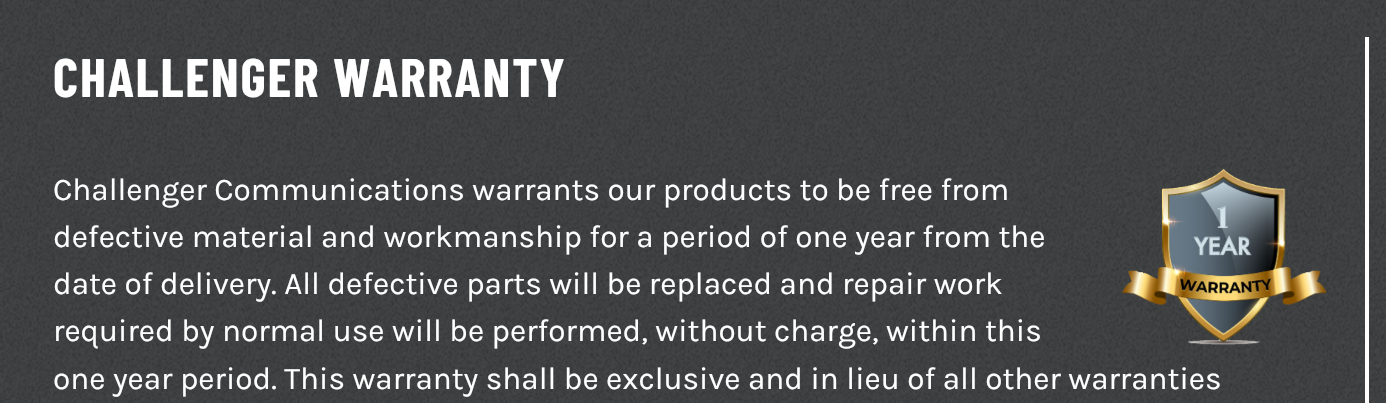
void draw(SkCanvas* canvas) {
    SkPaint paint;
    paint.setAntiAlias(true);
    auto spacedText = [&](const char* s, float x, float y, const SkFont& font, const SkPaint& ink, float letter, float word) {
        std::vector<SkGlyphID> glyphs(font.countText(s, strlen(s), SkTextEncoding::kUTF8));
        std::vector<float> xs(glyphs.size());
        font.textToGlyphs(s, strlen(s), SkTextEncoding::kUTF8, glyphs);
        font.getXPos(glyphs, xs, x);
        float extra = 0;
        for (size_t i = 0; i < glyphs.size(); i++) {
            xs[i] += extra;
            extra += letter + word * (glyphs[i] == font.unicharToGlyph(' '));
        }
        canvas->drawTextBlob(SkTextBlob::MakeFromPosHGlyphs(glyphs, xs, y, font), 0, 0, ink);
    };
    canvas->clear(0xFF363839);
    canvas->drawImageRect(SkImages::DeferredFromEncodedData(SkData::MakeFromFileName("img1.png")), SkRect::MakeXYWH(0, 0, 1386, 403), SkSamplingOptions());
    paint.setColor(0xFFFFFFFF);
    canvas->drawRect(SkRect::MakeXYWH(1365, 37, 4, 366), paint);
    SkFont font1(fontMgr->matchFamilyStyle("Barlow Condensed", SkFontStyle::Bold()), 54.25f);
    font1.setSubpixel(true);
    spacedText("CHALLENGER WARRANTY", 53, 97, font1, paint, 1.75f, 0);
    SkFont font2(fontMgr->matchFamilyStyle("Karla", SkFontStyle::Normal()), 31.5f);
    font2.setSubpixel(true);
    canvas->drawString("Challenger Communications warrants our products to be free from", 53, 200, font2, paint);
    canvas->drawString("defective material and workmanship for a period of one year from the", 53, 247, font2, paint);
    canvas->drawString("date of delivery. All defective parts will be replaced and repair work", 53, 294, font2, paint);
    canvas->drawString("required by normal use will be performed, without charge, within this", 53, 341, font2, paint);
    canvas->drawString("one year period. This warranty shall be exclusive and in lieu of all other warranties", 53, 389, font2, paint);
    canvas->drawImageRect(SkImages::DeferredFromEncodedData(SkData::MakeFromFileName("img2.png")), SkRect::MakeXYWH(1122, 168, 205, 177), SkSamplingOptions());
}
